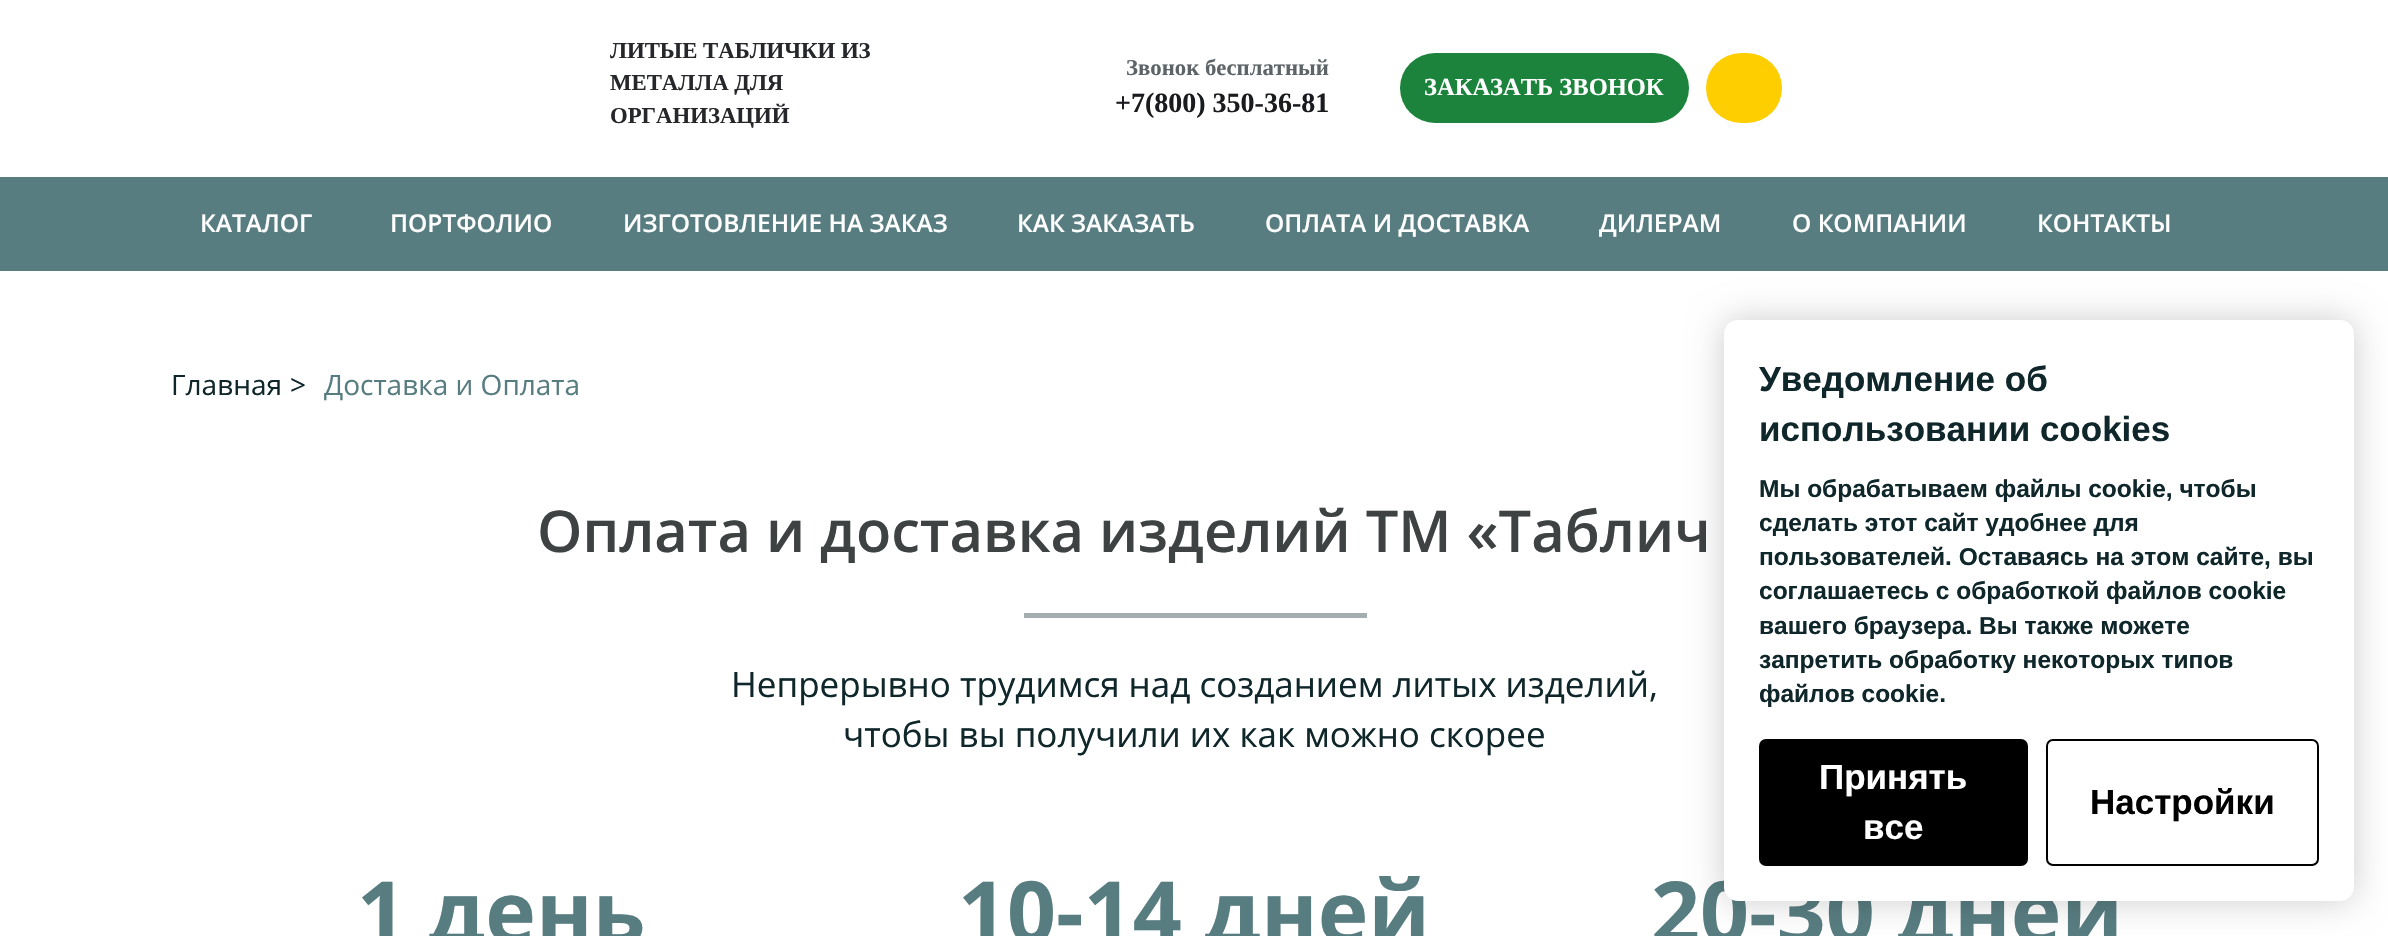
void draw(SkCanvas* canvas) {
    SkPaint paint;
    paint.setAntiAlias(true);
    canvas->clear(0xFFFFFFFF);
    SkFont font1(fontMgr->matchFamilyStyle("Liberation Serif", SkFontStyle::Bold()), 22.75f);
    font1.setSubpixel(true);
    paint.setColor(0xFF25272B);
    canvas->drawString("ЛИТЫЕ ТАБЛИЧКИ ИЗ", 610, 58, font1, paint);
    canvas->drawString("МЕТАЛЛА ДЛЯ", 610, 90, font1, paint);
    canvas->drawString("ОРГАНИЗАЦИЙ", 610, 123, font1, paint);
    paint.setColor(0xFF5D6468);
    canvas->drawString("Звонок бесплатный", 1126, 75, font1, paint);
    SkFont font2(fontMgr->matchFamilyStyle("Liberation Serif", SkFontStyle::Bold()), 28);
    font2.setSubpixel(true);
    paint.setColor(0xFF191B1E);
    canvas->drawString("+7(800) 350-36-81", 1115, 112, font2, paint);
    paint.setColor(0xFF1B833B);
    canvas->drawRoundRect(SkRect::MakeXYWH(1400, 53, 289, 70), 35, 35, paint);
    SkFont font3(fontMgr->matchFamilyStyle("Liberation Serif", SkFontStyle::Bold()), 24.5f);
    font3.setSubpixel(true);
    paint.setColor(0xFFFFFFFF);
    canvas->drawString("ЗАКАЗАТЬ ЗВОНОК", 1424, 95, font3, paint);
    paint.setColor(0xFFFFCE00);
    canvas->drawRoundRect(SkRect::MakeXYWH(1706, 53, 76, 70), 35, 35, paint);
    paint.setColor(0xFF587D81);
    canvas->drawRect(SkRect::MakeXYWH(0, 177, 2388, 94), paint);
    SkFont font4(fontMgr->matchFamilyStyle("Open Sans", SkFontStyle(600, SkFontStyle::kNormal_Width, SkFontStyle::kUpright_Slant)), 24.5f);
    font4.setSubpixel(true);
    paint.setColor(0xFFFFFFFF);
    canvas->drawString("КАТАЛОГ", 200, 232, font4, paint);
    canvas->drawString("ПОРТФОЛИО", 390, 232, font4, paint);
    canvas->drawString("ИЗГОТОВЛЕНИЕ НА ЗАКАЗ", 623, 232, font4, paint);
    canvas->drawString("КАК ЗАКАЗАТЬ", 1017, 232, font4, paint);
    canvas->drawString("ОПЛАТА И ДОСТАВКА", 1265, 232, font4, paint);
    canvas->drawString("ДИЛЕРАМ", 1599, 232, font4, paint);
    canvas->drawString("О КОМПАНИИ", 1792, 232, font4, paint);
    canvas->drawString("КОНТАКТЫ", 2037, 232, font4, paint);
    SkFont font5(fontMgr->matchFamilyStyle("Open Sans", SkFontStyle::Normal()), 28);
    font5.setSubpixel(true);
    paint.setColor(0xFF0F272A);
    canvas->drawString("Главная", 171, 395, font5, paint);
    canvas->drawString(">", 290, 395, font5, paint);
    paint.setColor(0xFF587D81);
    canvas->drawString("Доставка и Оплата", 324, 395, font5, paint);
    SkFont font6(fontMgr->matchFamilyStyle("Open Sans", SkFontStyle(600, SkFontStyle::kNormal_Width, SkFontStyle::kUpright_Slant)), 57.75f);
    font6.setSubpixel(true);
    paint.setColor(0xFF3E4243);
    canvas->drawString("Оплата и доставка изделий ТМ «Таблич", 537, 552, font6, paint);
    paint.setColor(0xFFA4ADB0);
    canvas->drawRect(SkRect::MakeXYWH(1024, 613, 343, 5), paint);
    SkFont font7(fontMgr->matchFamilyStyle("Open Sans", SkFontStyle::Normal()), 35);
    font7.setSubpixel(true);
    paint.setColor(0xFF0F272A);
    canvas->drawString("Непрерывно трудимся над созданием литых изделий,", 731, 697, font7, paint);
    canvas->drawString("чтобы вы получили их как можно скорее", 843, 747, font7, paint);
    SkFont font8(fontMgr->matchFamilyStyle("Open Sans", SkFontStyle::Bold()), 85.75f);
    font8.setSubpixel(true);
    paint.setColor(0xFF587D81);
    canvas->drawString("1 день", 357, 943, font8, paint);
    canvas->drawString("10-14 дней", 958, 943, font8, paint);
    canvas->drawString("20-30 дней", 1651, 943, font8, paint);
    paint.setColor(0x33000000);
    paint.setMaskFilter(SkMaskFilter::MakeBlur(kNormal_SkBlurStyle, 17.5f));
    canvas->drawRoundRect(SkRect::MakeXYWH(1724, 320, 630, 581), 14, 14, paint);
    paint.setMaskFilter(nullptr);
    paint.setColor(0xFFFFFFFF);
    canvas->drawRoundRect(SkRect::MakeXYWH(1724, 320, 630, 581), 14, 14, paint);
    SkFont font9(fontMgr->matchFamilyStyle("Liberation Sans", SkFontStyle::Bold()), 35);
    font9.setSubpixel(true);
    paint.setColor(0xFF0F272A);
    canvas->drawString("Уведомление об", 1759, 391, font9, paint);
    canvas->drawString("использовании cookies", 1759, 441, font9, paint);
    SkFont font10(fontMgr->matchFamilyStyle("Liberation Sans", SkFontStyle::Bold()), 24.5f);
    font10.setSubpixel(true);
    canvas->drawString("Мы обрабатываем файлы cookie, чтобы", 1759, 497, font10, paint);
    canvas->drawString("сделать этот сайт удобнее для", 1759, 531, font10, paint);
    canvas->drawString("пользователей. Оставаясь на этом сайте, вы", 1759, 565, font10, paint);
    canvas->drawString("соглашаетесь с обработкой файлов cookie", 1759, 599, font10, paint);
    canvas->drawString("вашего браузера. Вы также можете", 1759, 634, font10, paint);
    canvas->drawString("запретить обработку некоторых типов", 1759, 668, font10, paint);
    canvas->drawString("файлов cookie.", 1759, 702, font10, paint);
    paint.setColor(0xFF000000);
    canvas->drawRoundRect(SkRect::MakeXYWH(1759, 739, 269, 127), 7, 7, paint);
    paint.setColor(0xFFFFFFFF);
    canvas->drawString("Принять", 1819, 789, font9, paint);
    canvas->drawString("все", 1863, 839, font9, paint);
    paint.setStyle(SkPaint::kStroke_Style);
    paint.setStrokeWidth(2);
    paint.setColor(0xFF000000);
    canvas->drawRoundRect(SkRect::MakeXYWH(2047, 740, 271, 125), 6, 6, paint);
    paint.setStyle(SkPaint::kFill_Style);
    canvas->drawString("Настройки", 2090, 814, font9, paint);
}
